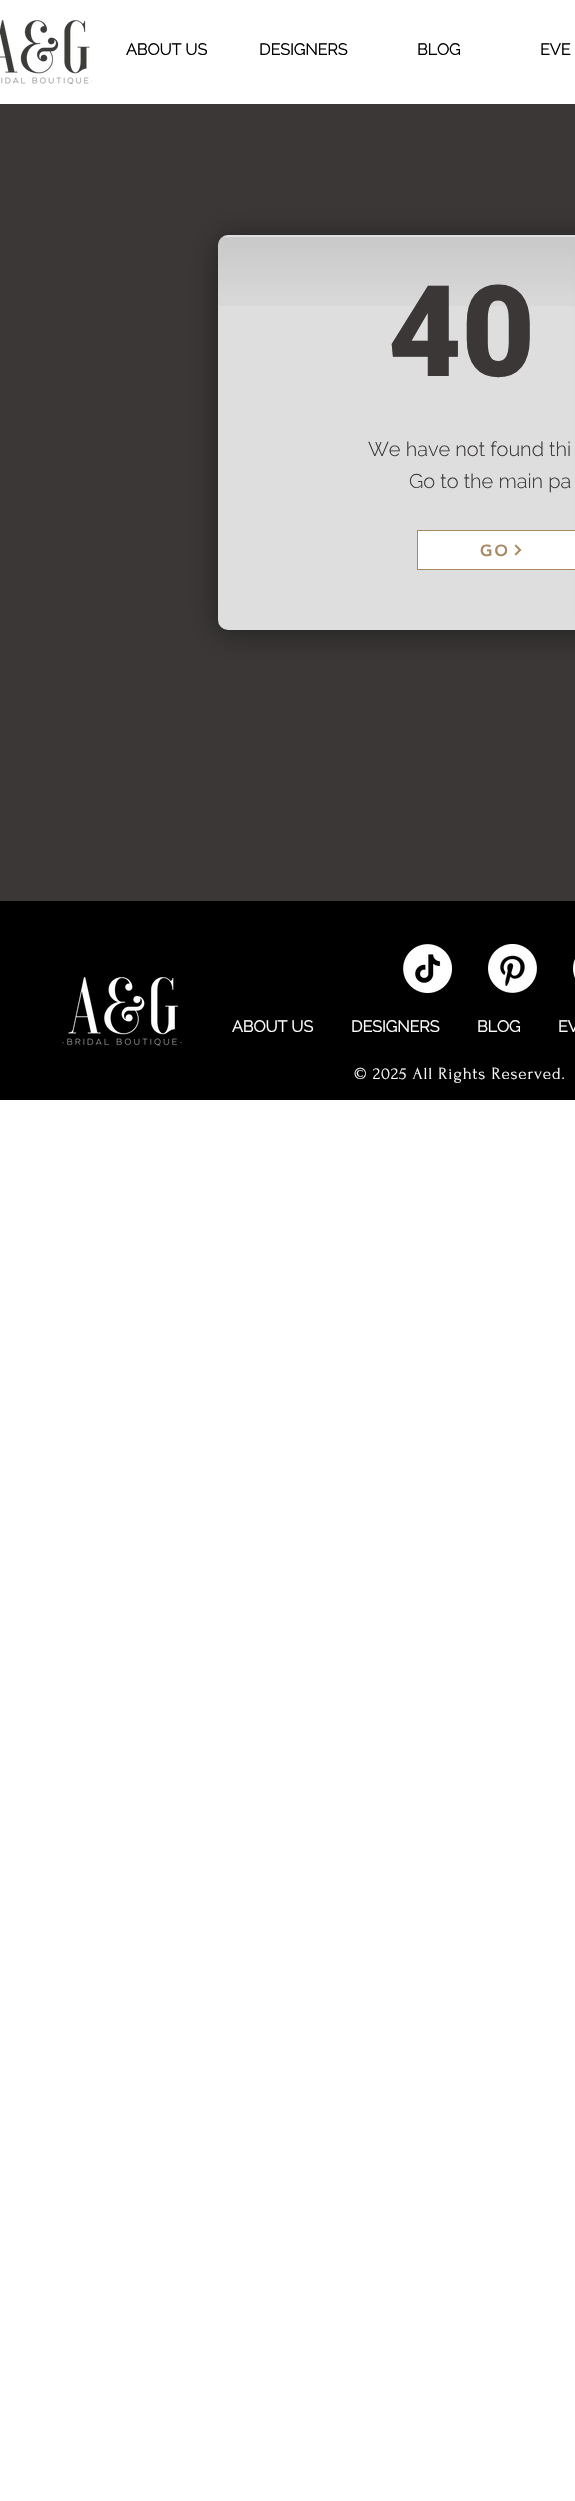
void draw(SkCanvas* canvas) {
    SkPaint paint;
    paint.setAntiAlias(true);
    auto spacedText = [&](const char* s, float x, float y, const SkFont& font, const SkPaint& ink, float letter, float word) {
        std::vector<SkGlyphID> glyphs(font.countText(s, strlen(s), SkTextEncoding::kUTF8));
        std::vector<float> xs(glyphs.size());
        font.textToGlyphs(s, strlen(s), SkTextEncoding::kUTF8, glyphs);
        font.getXPos(glyphs, xs, x);
        float extra = 0;
        for (size_t i = 0; i < glyphs.size(); i++) {
            xs[i] += extra;
            extra += letter + word * (glyphs[i] == font.unicharToGlyph(' '));
        }
        canvas->drawTextBlob(SkTextBlob::MakeFromPosHGlyphs(glyphs, xs, y, font), 0, 0, ink);
    };
    canvas->clear(0xFFFFFFFF);
    canvas->drawImageRect(SkImages::DeferredFromEncodedData(SkData::MakeFromFileName("img1.png")), SkRect::MakeXYWH(0, 20, 92, 65), SkSamplingOptions());
    SkFont font1(fontMgr->matchFamilyStyle("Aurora", SkFontStyle::Bold()), 16);
    font1.setSubpixel(true);
    paint.setColor(0xFF000000);
    canvas->drawString("ABOUT US", 126, 55, font1, paint);
    canvas->drawString("DESIGNERS", 259, 55, font1, paint);
    canvas->drawString("BLOG", 417, 55, font1, paint);
    canvas->drawString("EVE", 540, 55, font1, paint);
    paint.setColor(0xFF3B3737);
    canvas->drawRect(SkRect::MakeXYWH(0, 104, 575, 797), paint);
    canvas->save();
    canvas->clipPath(SkPathBuilder(SkPathFillType::kEvenOdd).moveTo(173, 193).lineTo(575, 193).lineTo(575, 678).lineTo(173, 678).close().moveTo(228, 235).lineTo(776, 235).cubicTo(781.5f, 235, 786, 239.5f, 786, 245).lineTo(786, 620).cubicTo(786, 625.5f, 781.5f, 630, 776, 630).lineTo(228, 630).cubicTo(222.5f, 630, 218, 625.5f, 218, 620).lineTo(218, 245).cubicTo(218, 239.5f, 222.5f, 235, 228, 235).close().detach(), true);
    paint.setColor(0x70000000);
    paint.setMaskFilter(SkMaskFilter::MakeBlur(kNormal_SkBlurStyle, 14.5f));
    canvas->drawRoundRect(SkRect::MakeXYWH(218, 238, 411, 395), 10, 10, paint);
    paint.setMaskFilter(nullptr);
    canvas->restore();
    paint.setColor(0xD4FFFFFF);
    canvas->drawRoundRect(SkRect::MakeXYWH(218, 235, 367, 395), 10, 10, paint);
    canvas->drawImageRect(SkImages::DeferredFromEncodedData(SkData::MakeFromFileName("img2.png")), SkRect::MakeXYWH(218, 237, 357, 69), SkSamplingOptions());
    SkFont font2(fontMgr->matchFamilyStyle("Roboto", SkFontStyle(900, SkFontStyle::kNormal_Width, SkFontStyle::kUpright_Slant)), 127);
    font2.setSubpixel(true);
    paint.setColor(0xFF3B3737);
    canvas->drawString("40", 388, 376, font2, paint);
    SkFont font3(fontMgr->matchFamilyStyle("Aurora", SkFontStyle(300, SkFontStyle::kNormal_Width, SkFontStyle::kUpright_Slant)), 20);
    font3.setSubpixel(true);
    canvas->drawString("We have not found thi", 368, 456, font3, paint);
    canvas->drawString("Go to the main pa", 409, 488, font3, paint);
    paint.setColor(0xFFFFFFFF);
    canvas->drawRect(SkRect::MakeXYWH(417.5f, 530.5f, 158, 39), paint);
    paint.setStyle(SkPaint::kStroke_Style);
    paint.setStrokeWidth(1);
    paint.setColor(0xFFA88861);
    canvas->drawRect(SkRect::MakeXYWH(417.5f, 530.5f, 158, 39), paint);
    SkFont font4(fontMgr->matchFamilyStyle("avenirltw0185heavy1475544", SkFontStyle(900, SkFontStyle::kNormal_Width, SkFontStyle::kUpright_Slant)), 16);
    font4.setSubpixel(true);
    paint.setStyle(SkPaint::kFill_Style);
    spacedText("GO", 480, 556, font4, paint, 2, 0);
    canvas->drawImageRect(SkImages::DeferredFromEncodedData(SkData::MakeFromFileName("img3.png")), SkRect::MakeXYWH(514, 544, 8, 12), SkSamplingOptions());
    paint.setColor(0xFF000000);
    canvas->drawRect(SkRect::MakeXYWH(0, 901, 575, 199), paint);
    canvas->drawImageRect(SkImages::DeferredFromEncodedData(SkData::MakeFromFileName("img4.png")), SkRect::MakeXYWH(62, 977, 120, 69), SkSamplingOptions());
    canvas->drawImageRect(SkImages::DeferredFromEncodedData(SkData::MakeFromFileName("img5.png")), SkRect::MakeXYWH(403, 944, 49, 49), SkSamplingOptions());
    canvas->drawImageRect(SkImages::DeferredFromEncodedData(SkData::MakeFromFileName("img6.png")), SkRect::MakeXYWH(488, 944, 49, 49), SkSamplingOptions());
    canvas->drawImageRect(SkImages::DeferredFromEncodedData(SkData::MakeFromFileName("img7.png")), SkRect::MakeXYWH(573, 959, 2, 19), SkSamplingOptions());
    paint.setColor(0xFFFFFFFF);
    canvas->drawString("ABOUT US", 232, 1032, font1, paint);
    canvas->drawString("DESIGNERS", 351, 1032, font1, paint);
    canvas->drawString("BLOG", 477, 1032, font1, paint);
    canvas->drawString("EV", 558, 1032, font1, paint);
    SkFont font5(fontMgr->matchFamilyStyle("Forum", SkFontStyle::Normal()), 17);
    font5.setSubpixel(true);
    spacedText("© 2025 All Rights Reserved.", 354, 1079, font5, paint, 0.85f, 0);
}
